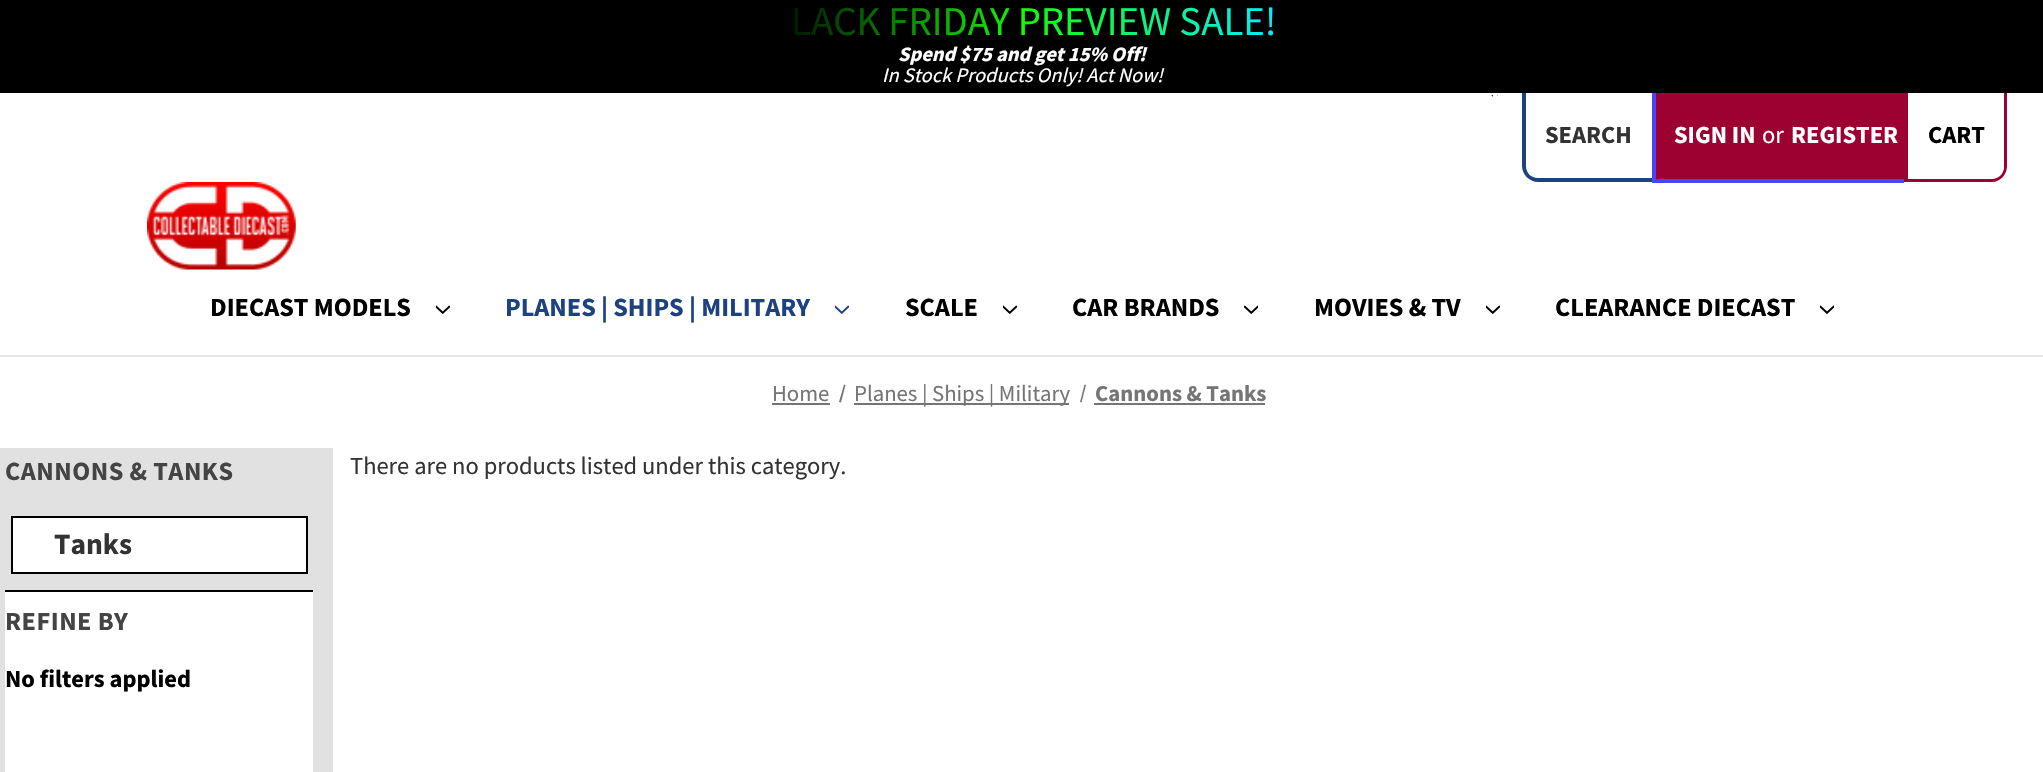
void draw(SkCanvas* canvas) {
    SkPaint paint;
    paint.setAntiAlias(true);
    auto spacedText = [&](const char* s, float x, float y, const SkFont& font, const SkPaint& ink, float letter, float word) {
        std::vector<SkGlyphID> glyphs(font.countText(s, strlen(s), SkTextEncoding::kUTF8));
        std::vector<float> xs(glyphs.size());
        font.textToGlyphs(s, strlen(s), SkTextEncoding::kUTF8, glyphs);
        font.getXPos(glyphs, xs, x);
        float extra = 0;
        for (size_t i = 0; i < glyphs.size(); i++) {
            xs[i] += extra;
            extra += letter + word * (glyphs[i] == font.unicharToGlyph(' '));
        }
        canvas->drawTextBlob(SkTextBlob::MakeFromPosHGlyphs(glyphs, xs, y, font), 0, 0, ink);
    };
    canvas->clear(0xFFFFFFFF);
    paint.setColor(0xFF000000);
    canvas->drawRect(SkRect::MakeXYWH(0, 0, 2043, 93), paint);
    SkFont font1(fontMgr->matchFamilyStyle("Source Sans Pro", SkFontStyle::Normal()), 40.9f);
    font1.setSubpixel(true);
    {
        const SkColor colors[] = {0xFF000000, 0xFF13FC03, 0xFF00EEFF};
        const float stops[] = {0, 0.5f, 1};
        const SkPoint ends[] = {{767, 20}, {1277, 20}};
        paint.setShader(SkGradientShader::MakeLinear(ends, colors, stops, 3, SkTileMode::kClamp));
        paint.setAlpha(255);
    }
    canvas->drawString("LACK FRIDAY PREVIEW SALE!", 791, 35, font1, paint);
    SkFont font2(fontMgr->matchFamilyStyle("Source Sans Pro", SkFontStyle::BoldItalic()), 20.5f);
    font2.setSubpixel(true);
    paint.setShader(nullptr);
    paint.setColor(0xFFFFFFFF);
    canvas->drawString("Spend $75 and get 15% Off!", 898, 61, font2, paint);
    SkFont font3(fontMgr->matchFamilyStyle("Source Sans Pro", SkFontStyle::Italic()), 20.5f);
    font3.setSubpixel(true);
    canvas->drawString("In Stock Products Only! Act Now!", 882, 82, font3, paint);
    paint.setColor(0xFFE5E5E5);
    canvas->drawRect(SkRect::MakeXYWH(0, 355, 2043, 2), paint);
    paint.setColor(0xFF9D0132);
    canvas->drawPath(SkPathBuilder().moveTo(1491, 93).lineTo(1498, 93).lineTo(1498, 93.5f).cubicTo(1498, 95.5f, 1496.5f, 97, 1494.5f, 97).cubicTo(1492.5f, 97, 1491, 95.5f, 1491, 93.5f).close().detach(), paint);
    paint.setColor(0xFFFFFFFF);
    canvas->drawRect(SkRect::MakeXYWH(1495, 93, 4, 2), paint);
    canvas->drawRect(SkRect::MakeXYWH(1493, 93, 4, 4), paint);
    canvas->drawRect(SkRect::MakeXYWH(1491, 93, 4, 2), paint);
    paint.setColor(0xFF1D4281);
    canvas->drawPath(SkPathBuilder(SkPathFillType::kEvenOdd).moveTo(1522, 93).lineTo(1652, 93).lineTo(1652, 182).lineTo(1538, 182).cubicTo(1530, 182, 1522, 175, 1522, 166).close().moveTo(1526, 93).lineTo(1652, 93).lineTo(1652, 178).lineTo(1538, 178).cubicTo(1531, 178, 1526, 173, 1526, 166).close().detach(), paint);
    SkFont font4(fontMgr->matchFamilyStyle("Source Sans Pro", SkFontStyle::Bold()), 24.5f);
    font4.setSubpixel(true);
    paint.setColor(0xFF333333);
    canvas->drawString("SEARCH", 1545, 143, font4, paint);
    paint.setColor(0xFF4447F9);
    canvas->drawRect(SkRect::MakeXYWH(1652, 179, 252, 4), paint);
    canvas->drawRect(SkRect::MakeXYWH(1652, 93, 4, 89), paint);
    paint.setColor(0xFF9D0132);
    canvas->drawRect(SkRect::MakeXYWH(1656, 93, 248, 86), paint);
    paint.setColor(0xFFFFFFFF);
    canvas->drawString("SIGN IN", 1674, 143, font4, paint);
    SkFont font5(fontMgr->matchFamilyStyle("Source Sans Pro", SkFontStyle::Normal()), 24.5f);
    font5.setSubpixel(true);
    canvas->drawString("or", 1762, 143, font5, paint);
    canvas->drawString("REGISTER", 1791, 143, font4, paint);
    paint.setColor(0xFF9D0132);
    canvas->drawPath(SkPathBuilder(SkPathFillType::kEvenOdd).moveTo(1904, 93).lineTo(2007, 93).lineTo(2007, 166).cubicTo(2007, 175, 2000, 182, 1992, 182).lineTo(1904, 182).close().moveTo(1908, 93).lineTo(2004, 93).lineTo(2004, 166).cubicTo(2004, 173, 1998, 178, 1992, 178).lineTo(1908, 178).close().detach(), paint);
    paint.setColor(0xFFFFFFFF);
    canvas->drawPath(SkPathBuilder().moveTo(1908, 93).lineTo(2004, 93).lineTo(2004, 167).cubicTo(2004, 173.5f, 1998.5f, 179, 1992, 179).lineTo(1908, 179).close().detach(), paint);
    paint.setColor(0xFF000000);
    canvas->drawString("CART", 1928, 143, font4, paint);
    canvas->drawImageRect(SkImages::DeferredFromEncodedData(SkData::MakeFromFileName("img1.png")), SkRect::MakeXYWH(147, 182, 149, 88), SkSamplingOptions());
    SkFont font6(fontMgr->matchFamilyStyle("Source Sans Pro", SkFontStyle::Bold()), 26.25f);
    font6.setSubpixel(true);
    canvas->drawString("DIECAST MODELS", 210, 316, font6, paint);
    canvas->drawImageRect(SkImages::DeferredFromEncodedData(SkData::MakeFromFileName("img2.png")), SkRect::MakeXYWH(436, 305, 14, 9), SkSamplingOptions());
    paint.setColor(0xFF1D4281);
    canvas->drawString("PLANES | SHIPS | MILITARY", 505, 316, font6, paint);
    canvas->drawImageRect(SkImages::DeferredFromEncodedData(SkData::MakeFromFileName("img3.png")), SkRect::MakeXYWH(835, 305, 14, 9), SkSamplingOptions());
    paint.setColor(0xFF000000);
    canvas->drawString("SCALE", 905, 316, font6, paint);
    canvas->drawImageRect(SkImages::DeferredFromEncodedData(SkData::MakeFromFileName("img2.png")), SkRect::MakeXYWH(1003, 305, 14, 9), SkSamplingOptions());
    canvas->drawString("CAR BRANDS", 1072, 316, font6, paint);
    canvas->drawImageRect(SkImages::DeferredFromEncodedData(SkData::MakeFromFileName("img4.png")), SkRect::MakeXYWH(1244, 305, 14, 9), SkSamplingOptions());
    canvas->drawString("MOVIES & TV", 1314, 316, font6, paint);
    canvas->drawImageRect(SkImages::DeferredFromEncodedData(SkData::MakeFromFileName("img2.png")), SkRect::MakeXYWH(1486, 305, 14, 9), SkSamplingOptions());
    canvas->drawString("CLEARANCE DIECAST", 1555, 316, font6, paint);
    canvas->drawImageRect(SkImages::DeferredFromEncodedData(SkData::MakeFromFileName("img5.png")), SkRect::MakeXYWH(1820, 305, 14, 9), SkSamplingOptions());
    SkFont font7(fontMgr->matchFamilyStyle("Source Sans Pro", SkFontStyle::Normal()), 22.75f);
    font7.setSubpixel(true);
    paint.setColor(0xFF757575);
    canvas->drawString("Home", 772, 401, font7, paint);
    canvas->drawRect(SkRect::MakeXYWH(772, 403, 58, 2), paint);
    canvas->drawPath(SkPathBuilder().moveTo(844, 384.5f).lineTo(845.5f, 385).lineTo(841, 402.5f).lineTo(839, 402).close().detach(), paint);
    canvas->drawRect(SkRect::MakeXYWH(854, 403, 215, 2), paint);
    canvas->drawString("Planes | Ships | Military", 854, 401, font7, paint);
    canvas->drawPath(SkPathBuilder().moveTo(1084.5f, 384.5f).lineTo(1086, 385).lineTo(1081.5f, 402.5f).lineTo(1080, 402).close().detach(), paint);
    SkFont font8(fontMgr->matchFamilyStyle("Source Sans Pro", SkFontStyle::Bold()), 22.75f);
    font8.setSubpixel(true);
    canvas->drawString("Cannons & Tanks", 1095, 401, font8, paint);
    canvas->drawRect(SkRect::MakeXYWH(1094, 403, 171, 2), paint);
    paint.setColor(0xFFE1E1E1);
    canvas->drawRect(SkRect::MakeXYWH(0, 448, 333, 324), paint);
    paint.setColor(0xFF444444);
    spacedText("CANNONS & TANKS", 5, 480, font6, paint, 0.5f, 0);
    paint.setColor(0xFFFFFFFF);
    canvas->drawRect(SkRect::MakeXYWH(12, 517, 295, 56), paint);
    paint.setStyle(SkPaint::kStroke_Style);
    paint.setStrokeWidth(2);
    paint.setColor(0xFF000000);
    canvas->drawRect(SkRect::MakeXYWH(12, 517, 295, 56), paint);
    SkFont font9(fontMgr->matchFamilyStyle("Source Sans Pro", SkFontStyle::Bold()), 29.5f);
    font9.setSubpixel(true);
    paint.setStyle(SkPaint::kFill_Style);
    paint.setColor(0xFF333333);
    canvas->drawString("Tanks", 54, 554, font9, paint);
    paint.setColor(0xFFFFFFFF);
    canvas->drawRect(SkRect::MakeXYWH(5, 592, 308, 180), paint);
    paint.setColor(0xFF000000);
    canvas->drawRect(SkRect::MakeXYWH(5, 590, 308, 2), paint);
    paint.setColor(0xFF444444);
    spacedText("REFINE BY", 5, 630, font6, paint, 0.5f, 0);
    paint.setColor(0xFF000000);
    canvas->drawString("No filters applied", 5, 687, font4, paint);
    paint.setColor(0xFF333333);
    canvas->drawString("There are no products listed under this category.", 350, 474, font5, paint);
}
